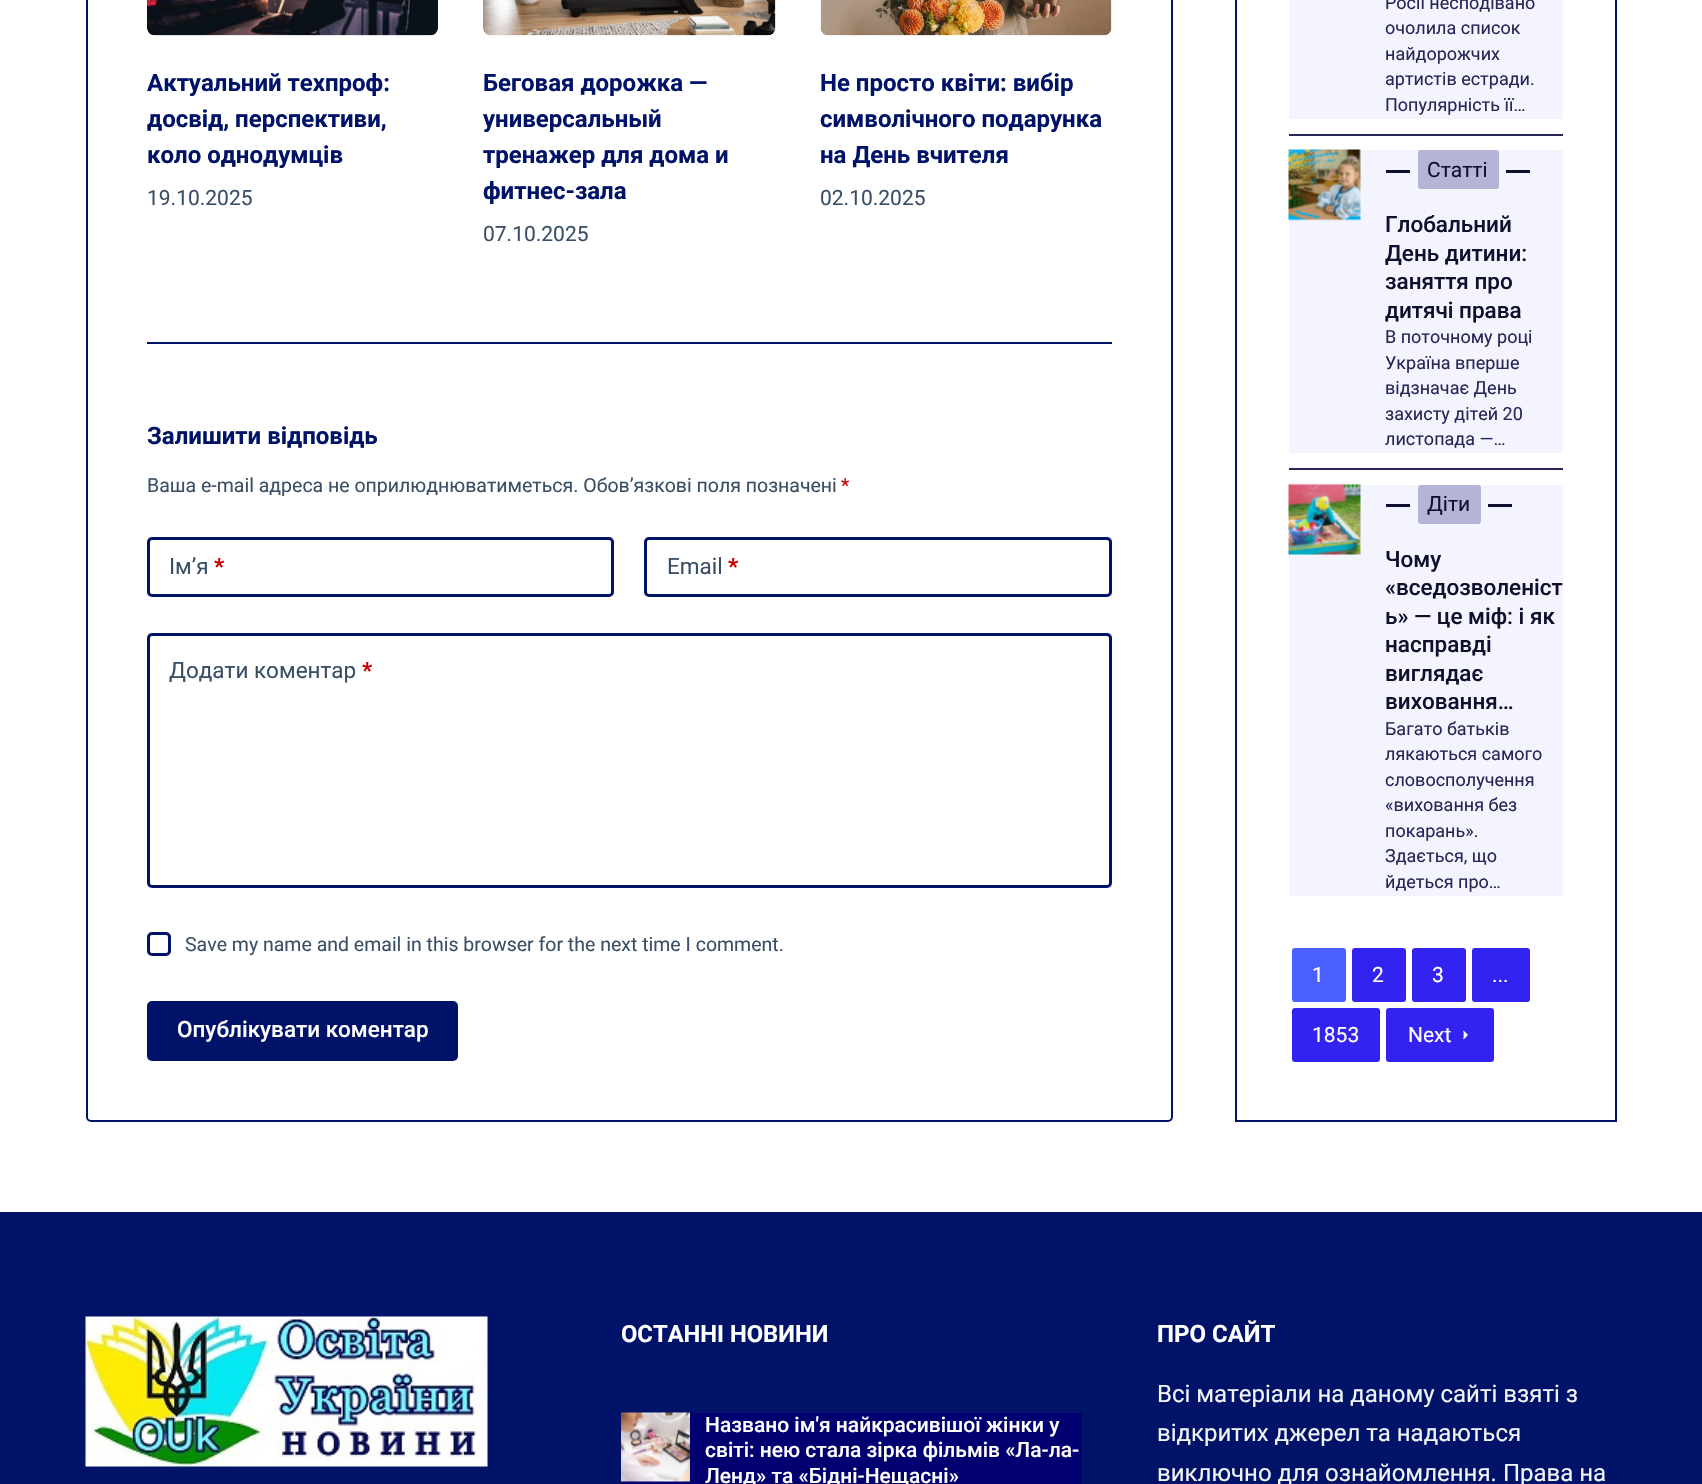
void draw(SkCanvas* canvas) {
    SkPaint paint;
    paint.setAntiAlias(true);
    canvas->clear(0xFFFFFFFF);
    paint.setStyle(SkPaint::kStroke_Style);
    paint.setStrokeWidth(2);
    paint.setColor(0xFF001368);
    canvas->drawRoundRect(SkRect::MakeXYWH(87, -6, 1085, 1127), 4, 4, paint);
    canvas->drawImageRect(SkImages::DeferredFromEncodedData(SkData::MakeFromFileName("img1.png")), SkRect::MakeXYWH(147, 0, 291, 36), SkSamplingOptions());
    SkFont font1(fontMgr->matchFamilyStyle("Roboto", SkFontStyle::Bold()), 24);
    font1.setSubpixel(true);
    paint.setStyle(SkPaint::kFill_Style);
    canvas->drawString("Актуальний техпроф:", 147, 91, font1, paint);
    canvas->drawString("досвід, перспективи,", 147, 127, font1, paint);
    canvas->drawString("коло однодумців", 147, 163, font1, paint);
    SkFont font2(fontMgr->matchFamilyStyle("Roboto", SkFontStyle::Normal()), 21);
    font2.setSubpixel(true);
    paint.setColor(0xFF3A4F66);
    canvas->drawString("19.10.2025", 147, 205, font2, paint);
    canvas->drawImageRect(SkImages::DeferredFromEncodedData(SkData::MakeFromFileName("img2.png")), SkRect::MakeXYWH(483, 0, 293, 36), SkSamplingOptions());
    paint.setColor(0xFF001368);
    canvas->drawString("Беговая дорожка —", 483, 91, font1, paint);
    canvas->drawString("универсальный", 483, 127, font1, paint);
    canvas->drawString("тренажер для дома и", 483, 163, font1, paint);
    canvas->drawString("фитнес-зала", 483, 199, font1, paint);
    paint.setColor(0xFF3A4F66);
    canvas->drawString("07.10.2025", 483, 241, font2, paint);
    canvas->drawImageRect(SkImages::DeferredFromEncodedData(SkData::MakeFromFileName("img3.png")), SkRect::MakeXYWH(820, 0, 292, 36), SkSamplingOptions());
    paint.setColor(0xFF001368);
    canvas->drawString("Не просто квіти: вибір", 820, 91, font1, paint);
    canvas->drawString("символічного подарунка", 820, 127, font1, paint);
    canvas->drawString("на День вчителя", 820, 163, font1, paint);
    paint.setColor(0xFF3A4F66);
    canvas->drawString("02.10.2025", 820, 205, font2, paint);
    paint.setColor(0xFF001368);
    canvas->drawRect(SkRect::MakeXYWH(147, 342, 965, 2), paint);
    canvas->drawString("Залишити відповідь", 147, 444, font1, paint);
    SkFont font3(fontMgr->matchFamilyStyle("Roboto", SkFontStyle::Normal()), 19.5f);
    font3.setSubpixel(true);
    paint.setColor(0xFF3A4F66);
    canvas->drawString("Ваша e-mail адреса не оприлюднюватиметься. Обов’язкові поля позначені", 147, 492, font3, paint);
    paint.setColor(0xFFCC0000);
    canvas->drawString("*", 841, 492, font3, paint);
    paint.setStyle(SkPaint::kStroke_Style);
    paint.setStrokeWidth(3);
    paint.setColor(0xFF001368);
    canvas->drawRoundRect(SkRect::MakeXYWH(148.5f, 538.5f, 464, 57), 3.5f, 3.5f, paint);
    SkFont font4(fontMgr->matchFamilyStyle("Roboto", SkFontStyle::Normal()), 22.5f);
    font4.setSubpixel(true);
    paint.setStyle(SkPaint::kFill_Style);
    paint.setColor(0xFF3A4F66);
    canvas->drawString("Ім’я", 169, 574, font4, paint);
    SkFont font5(fontMgr->matchFamilyStyle("Roboto", SkFontStyle::Bold()), 22.5f);
    font5.setSubpixel(true);
    paint.setColor(0xFFCC0000);
    canvas->drawString("*", 214, 574, font5, paint);
    paint.setStyle(SkPaint::kStroke_Style);
    paint.setColor(0xFF001368);
    canvas->drawRoundRect(SkRect::MakeXYWH(645.5f, 538.5f, 465, 57), 3.5f, 3.5f, paint);
    paint.setStyle(SkPaint::kFill_Style);
    paint.setColor(0xFF3A4F66);
    canvas->drawString("Email", 667, 574, font4, paint);
    paint.setColor(0xFFCC0000);
    canvas->drawString("*", 728, 574, font5, paint);
    paint.setStyle(SkPaint::kStroke_Style);
    paint.setColor(0xFF001368);
    canvas->drawRoundRect(SkRect::MakeXYWH(148.5f, 634.5f, 962, 252), 3.5f, 3.5f, paint);
    paint.setStyle(SkPaint::kFill_Style);
    paint.setColor(0xFF3A4F66);
    canvas->drawString("Додати коментар", 169, 678, font4, paint);
    paint.setColor(0xFFCC0000);
    canvas->drawString("*", 362, 678, font5, paint);
    paint.setStyle(SkPaint::kStroke_Style);
    paint.setColor(0xFF001368);
    canvas->drawRoundRect(SkRect::MakeXYWH(148.5f, 933.5f, 21, 21), 3.5f, 3.5f, paint);
    paint.setStyle(SkPaint::kFill_Style);
    paint.setColor(0xFF3A4F66);
    canvas->drawString("Save my name and email in this browser for the next time I comment.", 185, 951, font3, paint);
    paint.setColor(0xFF001368);
    canvas->drawRoundRect(SkRect::MakeXYWH(147, 1001, 311, 60), 5, 5, paint);
    SkFont font6(fontMgr->matchFamilyStyle("Roboto", SkFontStyle(500, SkFontStyle::kNormal_Width, SkFontStyle::kUpright_Slant)), 22.5f);
    font6.setSubpixel(true);
    paint.setColor(0xFFFFFFFF);
    canvas->drawString("Опублікувати коментар", 177, 1037, font6, paint);
    paint.setStyle(SkPaint::kStroke_Style);
    paint.setStrokeWidth(2);
    paint.setColor(0xFF001368);
    canvas->drawRect(SkRect::MakeXYWH(1236, -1, 380, 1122), paint);
    paint.setStyle(SkPaint::kFill_Style);
    paint.setColor(0xFF262657);
    canvas->drawRect(SkRect::MakeXYWH(1289, 134, 274, 2), paint);
    paint.setColor(0xFFF4F4FF);
    canvas->drawRect(SkRect::MakeXYWH(1289, 0, 274, 119), paint);
    SkFont font7(fontMgr->matchFamilyStyle("Roboto", SkFontStyle::Normal()), 18);
    font7.setSubpixel(true);
    paint.setColor(0xFF262657);
    canvas->drawString("Росії несподівано", 1385, 9, font7, paint);
    canvas->drawString("очолила список", 1385, 34, font7, paint);
    canvas->drawString("найдорожчих", 1385, 60, font7, paint);
    canvas->drawString("артистів естради.", 1385, 85, font7, paint);
    canvas->drawString("Популярність її…", 1385, 111, font7, paint);
    canvas->drawRect(SkRect::MakeXYWH(1289, 468, 274, 2), paint);
    paint.setColor(0xFFF4F4FF);
    canvas->drawRect(SkRect::MakeXYWH(1289, 150, 274, 303), paint);
    canvas->drawImageRect(SkImages::DeferredFromEncodedData(SkData::MakeFromFileName("img4.png")), SkRect::MakeXYWH(1288, 149, 73, 72), SkSamplingOptions());
    paint.setColor(0xFF10102E);
    canvas->drawRect(SkRect::MakeXYWH(1386, 170, 24, 3), paint);
    paint.setColor(0xFFB4B4D6);
    canvas->drawRoundRect(SkRect::MakeXYWH(1418, 150, 81, 39), 3, 3, paint);
    paint.setColor(0xFF10102E);
    canvas->drawString("Статті", 1427, 177, font2, paint);
    canvas->drawRect(SkRect::MakeXYWH(1506, 170, 24, 3), paint);
    canvas->drawString("Глобальний", 1385, 232, font6, paint);
    canvas->drawString("День дитини:", 1385, 261, font6, paint);
    canvas->drawString("заняття про", 1385, 289, font6, paint);
    canvas->drawString("дитячі права", 1385, 318, font6, paint);
    paint.setColor(0xFF262657);
    canvas->drawString("В поточному році", 1385, 343, font7, paint);
    canvas->drawString("Україна вперше", 1385, 369, font7, paint);
    canvas->drawString("відзначає День", 1385, 394, font7, paint);
    canvas->drawString("захисту дітей 20", 1385, 420, font7, paint);
    canvas->drawString("листопада —…", 1385, 445, font7, paint);
    paint.setColor(0xFFF4F4FF);
    canvas->drawRect(SkRect::MakeXYWH(1289, 485, 274, 411), paint);
    canvas->drawImageRect(SkImages::DeferredFromEncodedData(SkData::MakeFromFileName("img5.png")), SkRect::MakeXYWH(1288, 483, 73, 72), SkSamplingOptions());
    paint.setColor(0xFF10102E);
    canvas->drawRect(SkRect::MakeXYWH(1386, 504, 24, 3), paint);
    paint.setColor(0xFFB4B4D6);
    canvas->drawRoundRect(SkRect::MakeXYWH(1418, 485, 63, 39), 3, 3, paint);
    paint.setColor(0xFF10102E);
    canvas->drawString("Діти", 1427, 511, font2, paint);
    canvas->drawRect(SkRect::MakeXYWH(1488, 504, 24, 3), paint);
    canvas->drawString("Чому", 1385, 567, font6, paint);
    canvas->drawString("«вседозволеніст", 1385, 595, font6, paint);
    canvas->drawString("ь» — це міф: і як", 1385, 624, font6, paint);
    canvas->drawString("насправді", 1385, 652, font6, paint);
    canvas->drawString("виглядає", 1385, 681, font6, paint);
    canvas->drawString("виховання…", 1385, 709, font6, paint);
    paint.setColor(0xFF262657);
    canvas->drawString("Багато батьків", 1385, 735, font7, paint);
    canvas->drawString("лякаються самого", 1385, 760, font7, paint);
    canvas->drawString("словосполучення", 1385, 786, font7, paint);
    canvas->drawString("«виховання без", 1385, 811, font7, paint);
    canvas->drawString("покарань».", 1385, 837, font7, paint);
    canvas->drawString("Здається, що", 1385, 862, font7, paint);
    canvas->drawString("йдеться про…", 1385, 888, font7, paint);
    paint.setColor(0xFF4A5FFF);
    canvas->drawRoundRect(SkRect::MakeXYWH(1292, 948, 54, 54), 3, 3, paint);
    paint.setColor(0xFFFFFFFF);
    canvas->drawString("1", 1312, 982, font2, paint);
    paint.setColor(0xFF3323F0);
    canvas->drawRoundRect(SkRect::MakeXYWH(1352, 948, 54, 54), 3, 3, paint);
    paint.setColor(0xFFFFFFFF);
    canvas->drawString("2", 1372, 982, font2, paint);
    paint.setColor(0xFF3323F0);
    canvas->drawRoundRect(SkRect::MakeXYWH(1412, 948, 54, 54), 3, 3, paint);
    paint.setColor(0xFFFFFFFF);
    canvas->drawString("3", 1432, 982, font2, paint);
    paint.setColor(0xFF3323F0);
    canvas->drawRoundRect(SkRect::MakeXYWH(1472, 948, 58, 54), 3, 3, paint);
    paint.setColor(0xFFFFFFFF);
    canvas->drawString("...", 1492, 982, font2, paint);
    paint.setColor(0xFF3323F0);
    canvas->drawRoundRect(SkRect::MakeXYWH(1292, 1008, 88, 54), 3, 3, paint);
    paint.setColor(0xFFFFFFFF);
    canvas->drawString("1853", 1312, 1042, font2, paint);
    paint.setColor(0xFF3323F0);
    canvas->drawRoundRect(SkRect::MakeXYWH(1386, 1008, 108, 54), 3, 3, paint);
    paint.setColor(0xFFFFFFFF);
    canvas->drawString("Next", 1408, 1042, font2, paint);
    canvas->drawImageRect(SkImages::DeferredFromEncodedData(SkData::MakeFromFileName("img6.png")), SkRect::MakeXYWH(1463, 1030, 5, 10), SkSamplingOptions());
    paint.setColor(0xFF001368);
    canvas->drawRect(SkRect::MakeXYWH(0, 1212, 1702, 272), paint);
    canvas->drawImageRect(SkImages::DeferredFromEncodedData(SkData::MakeFromFileName("img7.png")), SkRect::MakeXYWH(85, 1316, 403, 151), SkSamplingOptions());
    SkFont font8(fontMgr->matchFamilyStyle("Roboto", SkFontStyle::Bold()), 23.75f);
    font8.setSubpixel(true);
    paint.setColor(0xFFFFFFFF);
    canvas->drawString("ОСТАННІ НОВИНИ", 621, 1342, font8, paint);
    paint.setColor(0xFF020070);
    canvas->drawRect(SkRect::MakeXYWH(621, 1413, 461, 71), paint);
    canvas->drawImageRect(SkImages::DeferredFromEncodedData(SkData::MakeFromFileName("img8.png")), SkRect::MakeXYWH(621, 1412, 69, 70), SkSamplingOptions());
    SkFont font9(fontMgr->matchFamilyStyle("Roboto", SkFontStyle(500, SkFontStyle::kNormal_Width, SkFontStyle::kUpright_Slant)), 21);
    font9.setSubpixel(true);
    paint.setColor(0xFFFFFFFF);
    canvas->drawString("Названо ім'я найкрасивішої жінки у", 705, 1432, font9, paint);
    canvas->drawString("світі: нею стала зірка фільмів «Ла-ла-", 705, 1457, font9, paint);
    canvas->drawString("Ленд» та «Бідні-Нещасні»", 705, 1483, font9, paint);
    canvas->drawString("ПРО САЙТ", 1157, 1342, font1, paint);
    SkFont font10(fontMgr->matchFamilyStyle("Roboto", SkFontStyle::Normal()), 24);
    font10.setSubpixel(true);
    paint.setColor(0xFFF2F5F7);
    canvas->drawString("Всі матеріали на даному сайті взяті з", 1157, 1402, font10, paint);
    canvas->drawString("відкритих джерел та надаються", 1157, 1441, font10, paint);
    canvas->drawString("виключно для ознайомлення. Права на", 1157, 1481, font10, paint);
}
